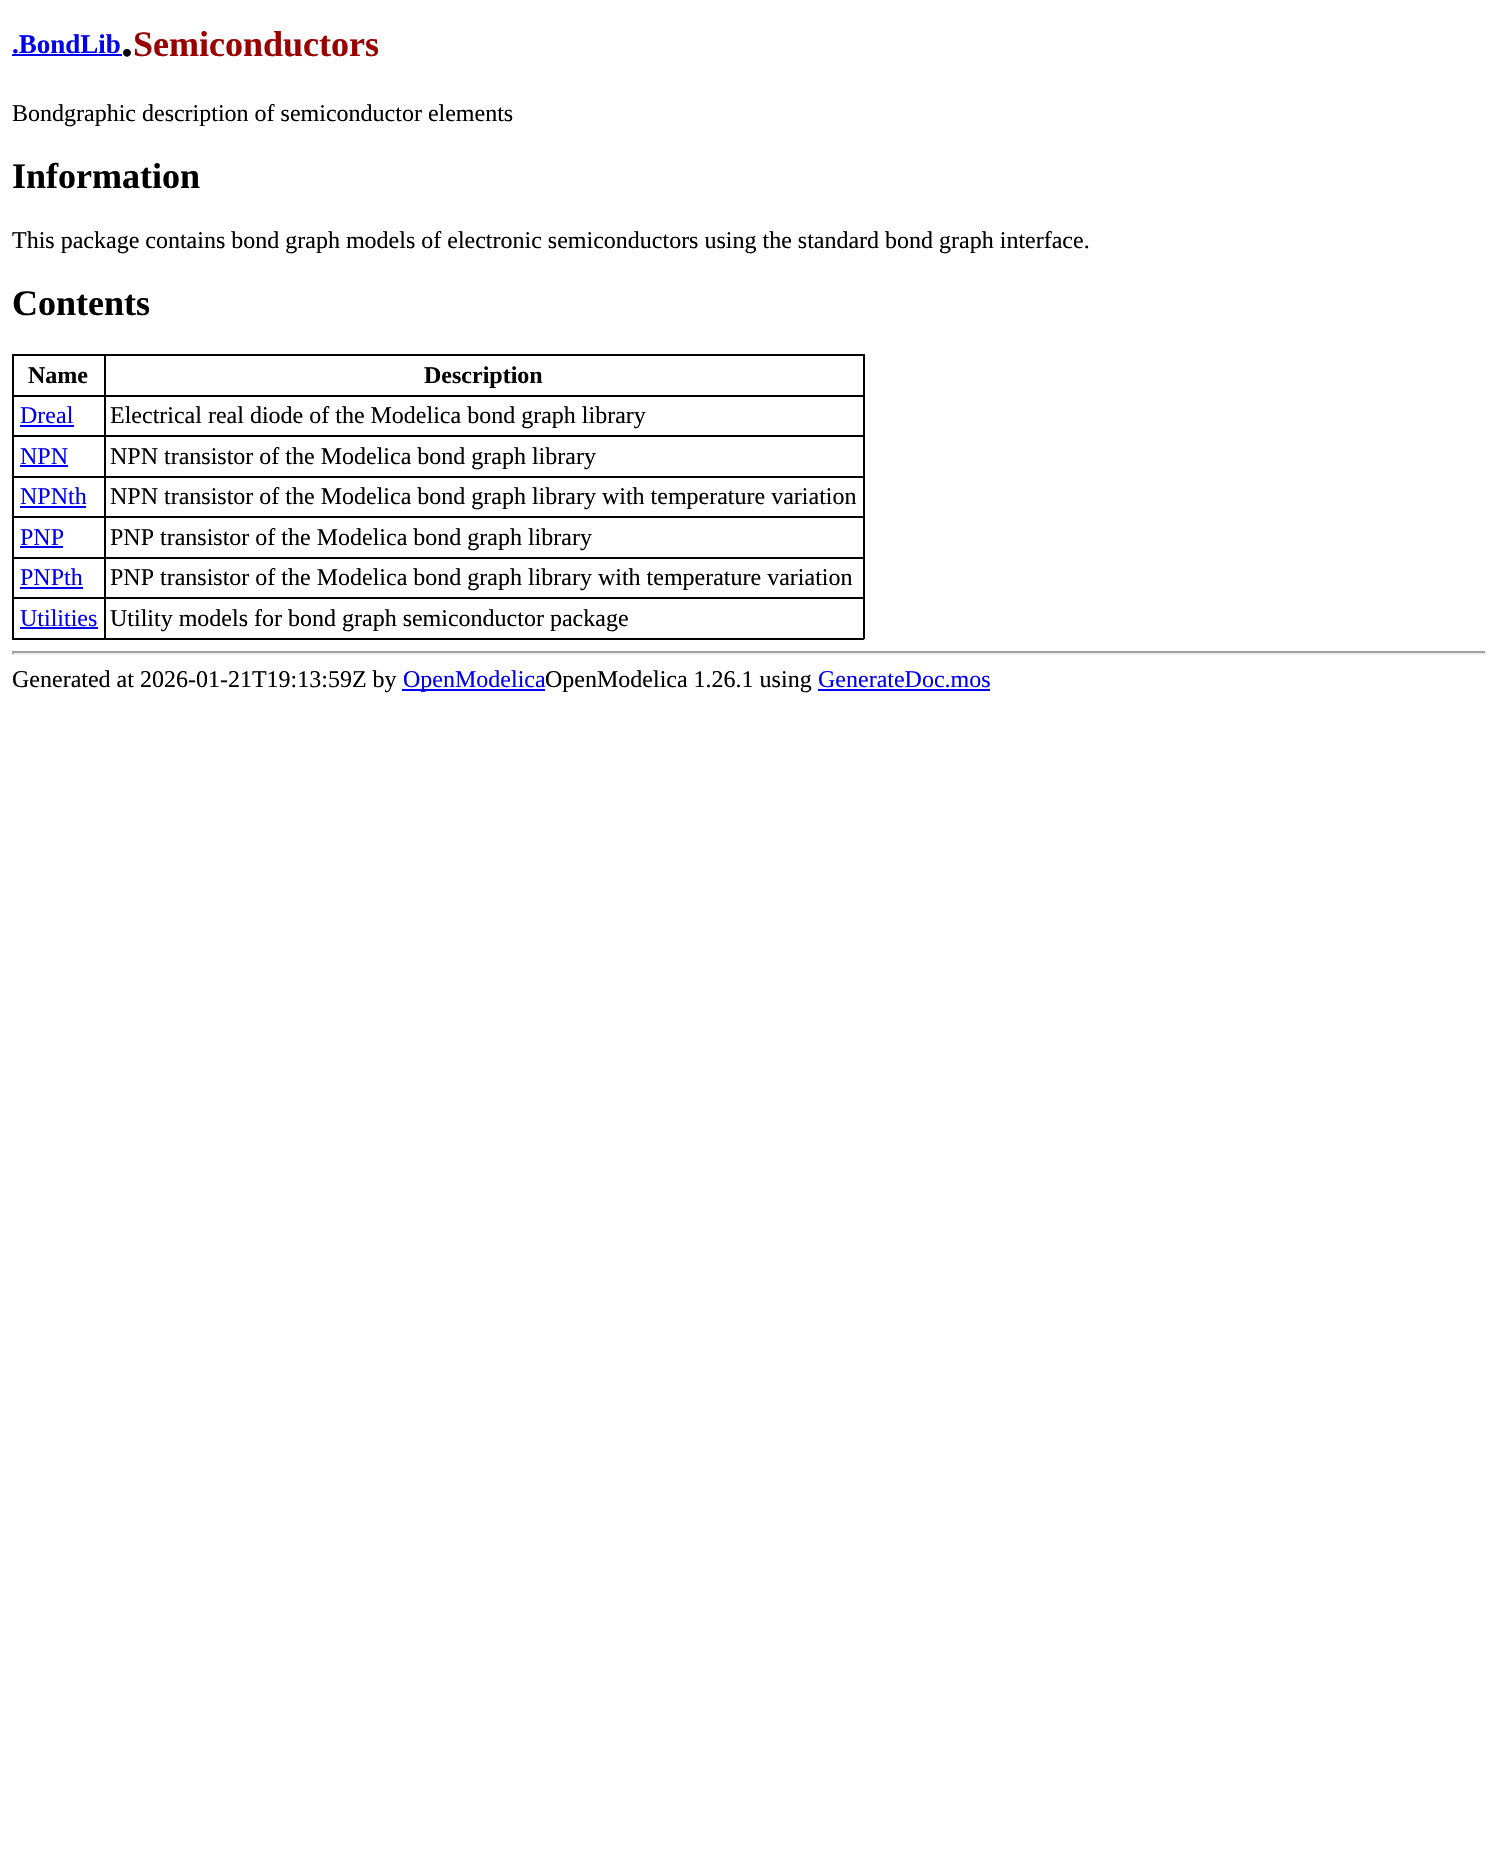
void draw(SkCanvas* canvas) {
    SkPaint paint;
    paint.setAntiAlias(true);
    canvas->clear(0xFFFFFFFF);
    SkFont font1(fontMgr->matchFamilyStyle("Liberation Serif", SkFontStyle::Bold()), 27);
    font1.setSubpixel(true);
    paint.setColor(0xFF0000EE);
    canvas->drawString(".BondLib", 12, 53, font1, paint);
    canvas->drawRect(SkRect::MakeXYWH(12, 54, 110, 2), paint);
    SkFont font2(fontMgr->matchFamilyStyle("Liberation Serif", SkFontStyle::Bold()), 48);
    font2.setSubpixel(true);
    paint.setColor(0xFF000000);
    canvas->drawString(".", 121, 56, font2, paint);
    SkFont font3(fontMgr->matchFamilyStyle("Liberation Serif", SkFontStyle::Bold()), 36);
    font3.setSubpixel(true);
    paint.setColor(0xFF990000);
    canvas->drawString("Semiconductors", 133, 56, font3, paint);
    SkFont font4(fontMgr->matchFamilyStyle("Liberation Serif", SkFontStyle::Normal()), 24);
    font4.setSubpixel(true);
    paint.setColor(0xFF000000);
    canvas->drawString("Bondgraphic description of semiconductor elements", 12, 121, font4, paint);
    canvas->drawString("Information", 12, 188, font3, paint);
    canvas->drawString("This package contains bond graph models of electronic semiconductors using the standard bond graph interface.", 12, 248, font4, paint);
    canvas->drawString("Contents", 12, 315, font3, paint);
    canvas->drawRect(SkRect::MakeXYWH(12, 354, 852, 2), paint);
    canvas->drawRect(SkRect::MakeXYWH(863, 354, 2, 285), paint);
    canvas->drawRect(SkRect::MakeXYWH(12, 638, 852, 2), paint);
    canvas->drawRect(SkRect::MakeXYWH(12, 354, 2, 285), paint);
    SkFont font5(fontMgr->matchFamilyStyle("Liberation Serif", SkFontStyle::Bold()), 24);
    font5.setSubpixel(true);
    canvas->drawString("Name", 28, 383, font5, paint);
    canvas->drawRect(SkRect::MakeXYWH(104, 395, 760, 2), paint);
    canvas->drawRect(SkRect::MakeXYWH(104, 435, 760, 2), paint);
    canvas->drawRect(SkRect::MakeXYWH(104, 476, 760, 2), paint);
    canvas->drawRect(SkRect::MakeXYWH(104, 516, 760, 2), paint);
    canvas->drawRect(SkRect::MakeXYWH(104, 557, 760, 2), paint);
    canvas->drawRect(SkRect::MakeXYWH(104, 597, 760, 2), paint);
    canvas->drawRect(SkRect::MakeXYWH(104, 597, 2, 42), paint);
    canvas->drawRect(SkRect::MakeXYWH(12, 597, 93, 2), paint);
    canvas->drawRect(SkRect::MakeXYWH(104, 557, 2, 42), paint);
    canvas->drawRect(SkRect::MakeXYWH(12, 557, 93, 2), paint);
    canvas->drawRect(SkRect::MakeXYWH(104, 516, 2, 42), paint);
    canvas->drawRect(SkRect::MakeXYWH(12, 516, 93, 2), paint);
    canvas->drawRect(SkRect::MakeXYWH(104, 476, 2, 42), paint);
    canvas->drawRect(SkRect::MakeXYWH(12, 476, 93, 2), paint);
    canvas->drawRect(SkRect::MakeXYWH(104, 435, 2, 42), paint);
    canvas->drawRect(SkRect::MakeXYWH(12, 435, 93, 2), paint);
    canvas->drawRect(SkRect::MakeXYWH(104, 395, 2, 42), paint);
    canvas->drawRect(SkRect::MakeXYWH(12, 395, 93, 2), paint);
    canvas->drawRect(SkRect::MakeXYWH(104, 354, 2, 42), paint);
    canvas->drawString("Description", 424, 383, font5, paint);
    paint.setColor(0xFF0000EE);
    canvas->drawString("Dreal", 20, 423, font4, paint);
    canvas->drawRect(SkRect::MakeXYWH(20, 425, 54, 2), paint);
    paint.setColor(0xFF000000);
    canvas->drawString("Electrical real diode of the Modelica bond graph library", 110, 423, font4, paint);
    paint.setColor(0xFF0000EE);
    canvas->drawString("NPN", 20, 464, font4, paint);
    canvas->drawRect(SkRect::MakeXYWH(20, 465, 48, 2), paint);
    paint.setColor(0xFF000000);
    canvas->drawString("NPN transistor of the Modelica bond graph library", 110, 464, font4, paint);
    paint.setColor(0xFF0000EE);
    canvas->drawString("NPNth", 20, 504, font4, paint);
    canvas->drawRect(SkRect::MakeXYWH(20, 506, 66, 2), paint);
    paint.setColor(0xFF000000);
    canvas->drawString("NPN transistor of the Modelica bond graph library with temperature variation", 110, 504, font4, paint);
    paint.setColor(0xFF0000EE);
    canvas->drawString("PNP", 20, 545, font4, paint);
    canvas->drawRect(SkRect::MakeXYWH(20, 546, 43, 2), paint);
    paint.setColor(0xFF000000);
    canvas->drawString("PNP transistor of the Modelica bond graph library", 110, 545, font4, paint);
    paint.setColor(0xFF0000EE);
    canvas->drawString("PNPth", 20, 585, font4, paint);
    canvas->drawRect(SkRect::MakeXYWH(20, 587, 63, 2), paint);
    paint.setColor(0xFF000000);
    canvas->drawString("PNP transistor of the Modelica bond graph library with temperature variation", 110, 585, font4, paint);
    paint.setColor(0xFF0000EE);
    canvas->drawString("Utilities", 20, 626, font4, paint);
    canvas->drawRect(SkRect::MakeXYWH(20, 627, 78, 2), paint);
    paint.setColor(0xFF000000);
    canvas->drawString("Utility models for bond graph semiconductor package", 110, 626, font4, paint);
    paint.setColor(0xFF9F9F9F);
    canvas->drawRect(SkRect::MakeXYWH(12, 651, 1475, 2), paint);
    paint.setColor(0xFFEEEEEE);
    canvas->drawRect(SkRect::MakeXYWH(1485, 651, 2, 3), paint);
    canvas->drawRect(SkRect::MakeXYWH(12, 653, 1475, 2), paint);
    paint.setColor(0xFF9F9F9F);
    canvas->drawRect(SkRect::MakeXYWH(12, 651, 2, 3), paint);
    paint.setColor(0xFF000000);
    canvas->drawString("Generated at 2026-01-21T19:13:59Z by", 12, 687, font4, paint);
    paint.setColor(0xFF0000EE);
    canvas->drawRect(SkRect::MakeXYWH(402, 689, 143, 2), paint);
    canvas->drawString("OpenModelica", 403, 687, font4, paint);
    paint.setColor(0xFF000000);
    canvas->drawString("OpenModelica 1.26.1 using", 545, 687, font4, paint);
    paint.setColor(0xFF0000EE);
    canvas->drawString("GenerateDoc.mos", 818, 687, font4, paint);
    canvas->drawRect(SkRect::MakeXYWH(818, 689, 172, 2), paint);
}
